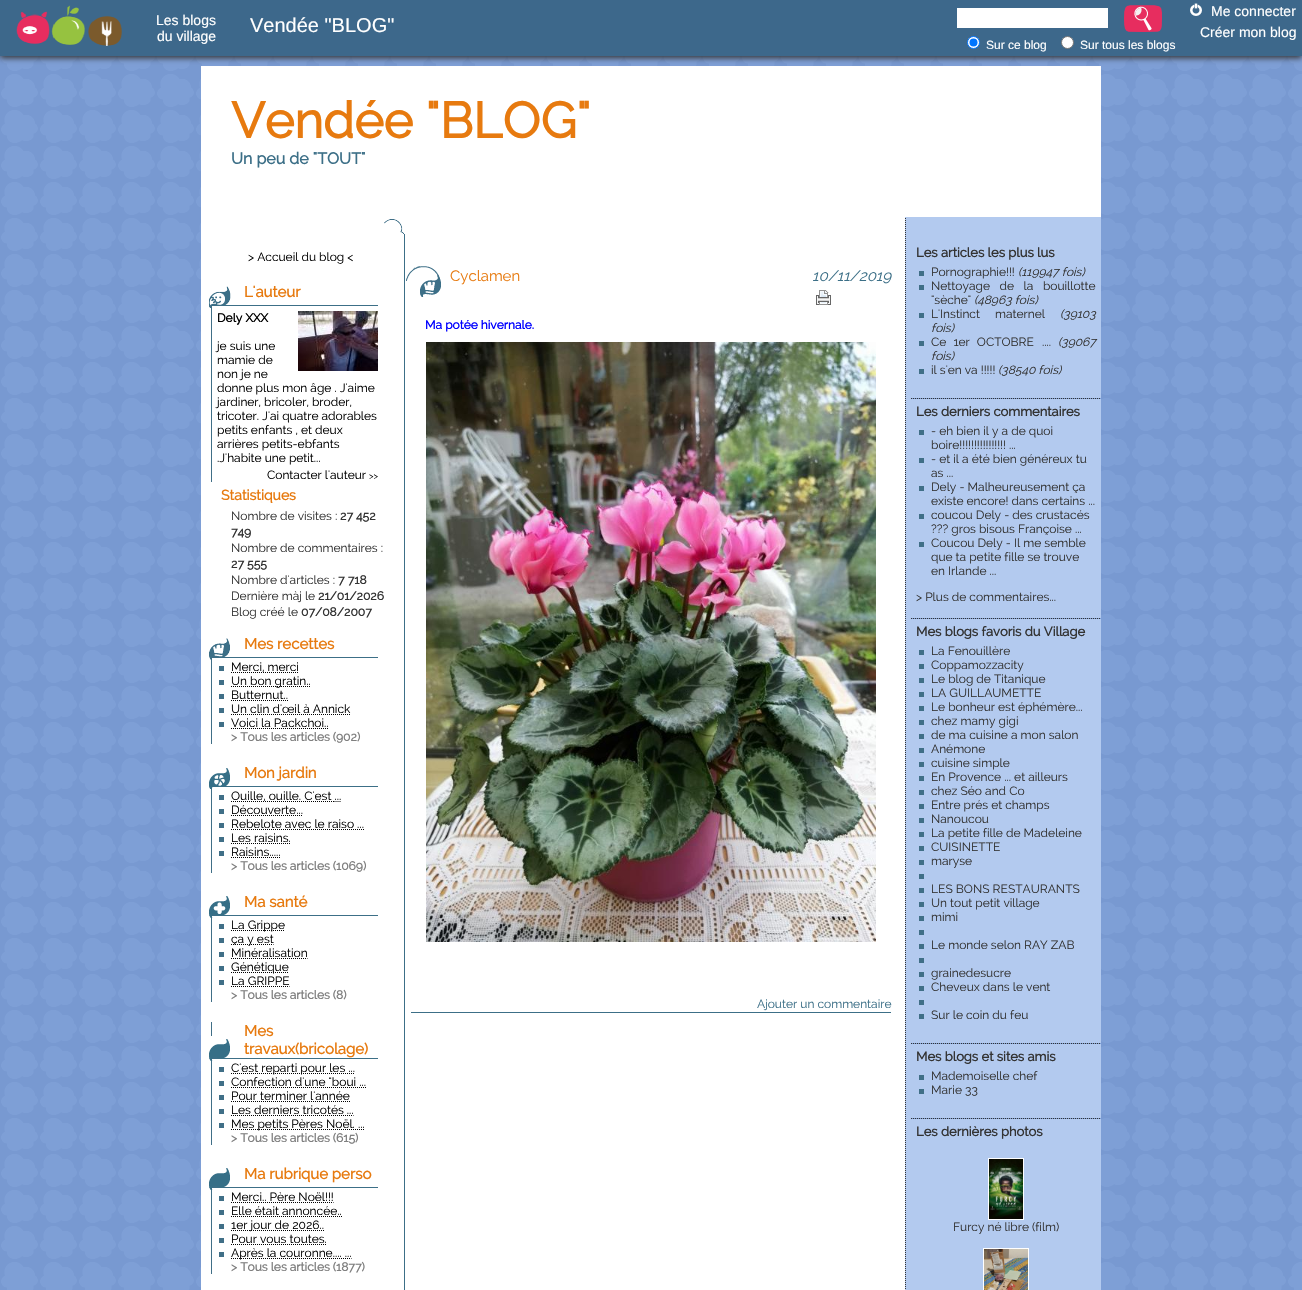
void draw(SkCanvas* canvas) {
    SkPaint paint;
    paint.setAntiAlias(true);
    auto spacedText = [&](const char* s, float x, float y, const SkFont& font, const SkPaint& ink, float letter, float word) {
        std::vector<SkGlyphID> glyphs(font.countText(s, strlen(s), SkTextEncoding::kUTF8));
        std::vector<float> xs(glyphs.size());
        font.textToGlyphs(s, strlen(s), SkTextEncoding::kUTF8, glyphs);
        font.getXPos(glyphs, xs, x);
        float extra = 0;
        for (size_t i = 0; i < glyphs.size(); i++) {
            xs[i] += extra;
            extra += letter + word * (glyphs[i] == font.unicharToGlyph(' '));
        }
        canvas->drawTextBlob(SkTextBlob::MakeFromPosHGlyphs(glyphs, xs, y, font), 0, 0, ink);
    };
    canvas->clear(0xFF7899D1);
    canvas->drawImageRect(SkImages::DeferredFromEncodedData(SkData::MakeFromFileName("img1.png")), SkRect::MakeXYWH(1, 56, 1301, 1234), SkSamplingOptions());
    paint.setColor(0xFFFFFFFF);
    canvas->drawRect(SkRect::MakeXYWH(201, 66, 900, 151), paint);
    paint.setColor(0xFF333333);
    paint.setMaskFilter(SkMaskFilter::MakeBlur(kNormal_SkBlurStyle, 3));
    canvas->drawRect(SkRect::MakeXYWH(0, 2, 1302, 56), paint);
    paint.setMaskFilter(nullptr);
    paint.setColor(0xFF3D688B);
    canvas->drawRect(SkRect::MakeXYWH(0, 0, 1302, 56), paint);
    canvas->drawImageRect(SkImages::DeferredFromEncodedData(SkData::MakeFromFileName("img2.png")), SkRect::MakeXYWH(16, 5, 106, 41), SkSamplingOptions());
    SkFont font1(fontMgr->matchFamilyStyle("Liberation Sans", SkFontStyle::Normal()), 14);
    font1.setSubpixel(true);
    paint.setColor(0xFFFFFFFF);
    canvas->drawString("Les blogs", 156, 25, font1, paint);
    canvas->drawString("du village", 157, 41, font1, paint);
    SkFont font2(fontMgr->matchFamilyStyle("Liberation Sans", SkFontStyle::Normal()), 20);
    font2.setSubpixel(true);
    canvas->drawString("Vendée \"BLOG\"", 250, 32, font2, paint);
    canvas->drawImageRect(SkImages::DeferredFromEncodedData(SkData::MakeFromFileName("img3.png")), SkRect::MakeXYWH(1190, 3, 12, 13), SkSamplingOptions());
    canvas->drawString("Me connecter", 1211, 16, font1, paint);
    canvas->drawString("Créer mon blog", 1200, 37, font1, paint);
    canvas->drawRect(SkRect::MakeXYWH(957, 8, 151, 20), paint);
    canvas->drawImageRect(SkImages::DeferredFromEncodedData(SkData::MakeFromFileName("img4.png")), SkRect::MakeXYWH(1124, 5, 38, 27), SkSamplingOptions());
    canvas->drawCircle(973.5f, 42.5f, 6, paint);
    paint.setStyle(SkPaint::kStroke_Style);
    paint.setStrokeWidth(1);
    paint.setColor(0xFF0075FF);
    canvas->drawCircle(973.5f, 42.5f, 6, paint);
    paint.setStyle(SkPaint::kFill_Style);
    canvas->drawCircle(973.5f, 42.5f, 4, paint);
    SkFont font3(fontMgr->matchFamilyStyle("Liberation Sans", SkFontStyle::Normal()), 12);
    font3.setSubpixel(true);
    paint.setColor(0xFFFFFFFF);
    canvas->drawString("Sur ce blog", 986, 49, font3, paint);
    canvas->drawCircle(1067.5f, 42.5f, 6, paint);
    paint.setStyle(SkPaint::kStroke_Style);
    paint.setColor(0xFF767676);
    canvas->drawCircle(1067.5f, 42.5f, 6, paint);
    paint.setStyle(SkPaint::kFill_Style);
    paint.setColor(0xFFFFFFFF);
    canvas->drawString("Sur tous les blogs", 1080, 49, font3, paint);
    paint.setColor(0xFFB3CAEF);
    canvas->drawRect(SkRect::MakeXYWH(906, 217, 195, 1073), paint);
    canvas->drawImageRect(SkImages::DeferredFromEncodedData(SkData::MakeFromFileName("img5.png")), SkRect::MakeXYWH(201, 217, 705, 1073), SkSamplingOptions());
    SkFont font4(fontMgr->matchFamilyStyle("Raleway", SkFontStyle::Bold()), 50);
    font4.setSubpixel(true);
    paint.setColor(0xFFE77A0F);
    canvas->drawString("Vendée \"BLOG\"", 231, 138, font4, paint);
    SkFont font5(fontMgr->matchFamilyStyle("Raleway", SkFontStyle::Bold()), 16);
    font5.setSubpixel(true);
    paint.setColor(0xFF3C6F87);
    canvas->drawString("Un peu de \"TOUT\"", 231, 164, font5, paint);
    canvas->drawImageRect(SkImages::DeferredFromEncodedData(SkData::MakeFromFileName("img6.png")), SkRect::MakeXYWH(384, 217, 21, 17), SkSamplingOptions());
    SkFont font6(fontMgr->matchFamilyStyle("Raleway", SkFontStyle::Normal()), 12);
    font6.setSubpixel(true);
    paint.setColor(0xFF000000);
    canvas->drawString("> Accueil du blog <", 248, 261, font6, paint);
    paint.setColor(0xFF406F87);
    canvas->drawRect(SkRect::MakeXYWH(211, 306, 1, 176), paint);
    canvas->drawImageRect(SkImages::DeferredFromEncodedData(SkData::MakeFromFileName("img7.png")), SkRect::MakeXYWH(209, 283, 169, 25), SkSamplingOptions());
    SkFont font7(fontMgr->matchFamilyStyle("Raleway", SkFontStyle::Bold()), 15);
    font7.setSubpixel(true);
    paint.setColor(0xFFE77A0F);
    canvas->drawString("L'auteur", 244, 297, font7, paint);
    canvas->drawImageRect(SkImages::DeferredFromEncodedData(SkData::MakeFromFileName("img8.png")), SkRect::MakeXYWH(298, 311, 80, 60), SkSamplingOptions());
    SkFont font8(fontMgr->matchFamilyStyle("Raleway", SkFontStyle::Bold()), 12);
    font8.setSubpixel(true);
    paint.setColor(0xFF000000);
    canvas->drawString("Dely XXX", 217, 322, font8, paint);
    canvas->drawString("je suis une", 217, 350, font6, paint);
    canvas->drawString("mamie de", 217, 364, font6, paint);
    canvas->drawString("non je ne", 217, 378, font6, paint);
    canvas->drawString("donne plus mon âge . J'aime", 217, 392, font6, paint);
    canvas->drawString("jardiner, bricoler, broder,", 217, 406, font6, paint);
    canvas->drawString("tricoter. J'ai quatre adorables", 217, 420, font6, paint);
    canvas->drawString("petits enfants , et deux", 217, 434, font6, paint);
    canvas->drawString("arrières petits-ebfants", 217, 448, font6, paint);
    canvas->drawString(".J'habite une petit...", 217, 462, font6, paint);
    canvas->drawString("Contacter l'auteur", 267, 479, font6, paint);
    SkFont font9(fontMgr->matchFamilyStyle("Raleway", SkFontStyle::Normal()), 9);
    font9.setSubpixel(true);
    canvas->drawString(">>", 369, 479, font9, paint);
    SkFont font10(fontMgr->matchFamilyStyle("Raleway", SkFontStyle::Bold()), 14);
    font10.setSubpixel(true);
    paint.setColor(0xFFE77A0F);
    canvas->drawString("Statistiques", 221, 500, font10, paint);
    paint.setColor(0xFF333333);
    canvas->drawString("Nombre de visites :", 231, 520, font6, paint);
    canvas->drawString("27 452", 340, 520, font8, paint);
    canvas->drawString("749", 231, 536, font8, paint);
    canvas->drawString("Nombre de commentaires :", 231, 552, font6, paint);
    canvas->drawString("27 555", 231, 568, font8, paint);
    canvas->drawString("Nombre d'articles :", 231, 584, font6, paint);
    canvas->drawString("7 718", 338, 584, font8, paint);
    canvas->drawString("Dernière màj le", 231, 600, font6, paint);
    canvas->drawString("21/01/2026", 318, 600, font8, paint);
    canvas->drawString("Blog créé le", 231, 616, font6, paint);
    canvas->drawString("07/08/2007", 301, 616, font8, paint);
    paint.setColor(0xFF406F87);
    canvas->drawRect(SkRect::MakeXYWH(211, 660, 1, 84), paint);
    canvas->drawImageRect(SkImages::DeferredFromEncodedData(SkData::MakeFromFileName("img9.png")), SkRect::MakeXYWH(209, 635, 169, 25), SkSamplingOptions());
    paint.setColor(0xFFE77A0F);
    canvas->drawString("Mes recettes", 244, 649, font7, paint);
    paint.setColor(0xFF406F87);
    canvas->drawRect(SkRect::MakeXYWH(219, 666, 5, 5), paint);
    paint.setColor(0xFF000000);
    canvas->drawString("Merci, merci", 231, 671, font6, paint);
    paint.setStyle(SkPaint::kStroke_Style);
    paint.setPathEffect(SkDashPathEffect::Make({{1, 1}}, 0));
    canvas->drawPath(SkPathBuilder().moveTo(231, 672.5f).lineTo(299, 672.5f).detach(), paint);
    paint.setPathEffect(nullptr);
    paint.setStyle(SkPaint::kFill_Style);
    paint.setColor(0xFF406F87);
    canvas->drawRect(SkRect::MakeXYWH(219, 680, 5, 5), paint);
    paint.setStyle(SkPaint::kStroke_Style);
    paint.setColor(0xFF000000);
    paint.setPathEffect(SkDashPathEffect::Make({{1, 1}}, 0));
    canvas->drawPath(SkPathBuilder().moveTo(231, 686.5f).lineTo(311, 686.5f).detach(), paint);
    paint.setPathEffect(nullptr);
    paint.setStyle(SkPaint::kFill_Style);
    canvas->drawString("Un bon gratin..", 231, 685, font6, paint);
    paint.setColor(0xFF406F87);
    canvas->drawRect(SkRect::MakeXYWH(219, 694, 5, 5), paint);
    paint.setColor(0xFF000000);
    canvas->drawString("Butternut..", 231, 699, font6, paint);
    paint.setStyle(SkPaint::kStroke_Style);
    paint.setPathEffect(SkDashPathEffect::Make({{1, 1}}, 0));
    canvas->drawPath(SkPathBuilder().moveTo(231, 700.5f).lineTo(288, 700.5f).detach(), paint);
    paint.setPathEffect(nullptr);
    paint.setStyle(SkPaint::kFill_Style);
    paint.setColor(0xFF406F87);
    canvas->drawRect(SkRect::MakeXYWH(219, 708, 5, 5), paint);
    paint.setColor(0xFF000000);
    canvas->drawString("Un clin d'œil à Annick", 231, 713, font6, paint);
    paint.setStyle(SkPaint::kStroke_Style);
    paint.setPathEffect(SkDashPathEffect::Make({{1, 1}}, 0));
    canvas->drawPath(SkPathBuilder().moveTo(231, 714.5f).lineTo(350.5f, 714.5f).detach(), paint);
    paint.setPathEffect(nullptr);
    paint.setStyle(SkPaint::kFill_Style);
    paint.setColor(0xFF406F87);
    canvas->drawRect(SkRect::MakeXYWH(219, 722, 5, 5), paint);
    paint.setColor(0xFF000000);
    canvas->drawString("Voici la Packchoi..", 231, 727, font6, paint);
    paint.setStyle(SkPaint::kStroke_Style);
    paint.setPathEffect(SkDashPathEffect::Make({{1, 1}}, 0));
    canvas->drawPath(SkPathBuilder().moveTo(231, 728.5f).lineTo(328.5f, 728.5f).detach(), paint);
    paint.setPathEffect(nullptr);
    paint.setStyle(SkPaint::kFill_Style);
    paint.setColor(0xFF7F7F7F);
    canvas->drawString("> Tous les articles (902)", 231, 741, font8, paint);
    paint.setColor(0xFF406F87);
    canvas->drawRect(SkRect::MakeXYWH(211, 789, 1, 84), paint);
    canvas->drawImageRect(SkImages::DeferredFromEncodedData(SkData::MakeFromFileName("img10.png")), SkRect::MakeXYWH(209, 764, 169, 25), SkSamplingOptions());
    paint.setColor(0xFFE77A0F);
    canvas->drawString("Mon jardin", 244, 778, font7, paint);
    paint.setColor(0xFF406F87);
    canvas->drawRect(SkRect::MakeXYWH(219, 795, 5, 5), paint);
    paint.setColor(0xFF000000);
    canvas->drawString("Ouille, ouille. C'est ...", 231, 800, font6, paint);
    paint.setStyle(SkPaint::kStroke_Style);
    paint.setPathEffect(SkDashPathEffect::Make({{1, 1}}, 0));
    canvas->drawPath(SkPathBuilder().moveTo(231, 801.5f).lineTo(334.5f, 801.5f).detach(), paint);
    paint.setPathEffect(nullptr);
    canvas->drawPath(SkPathBuilder().moveTo(334.5f, 801.5f).lineTo(335.5f, 801.5f).moveTo(336.5f, 801.5f).lineTo(337.5f, 801.5f).moveTo(338.5f, 801.5f).lineTo(339.5f, 801.5f).moveTo(340.5f, 801.5f).lineTo(341, 801.5f).detach(), paint);
    paint.setStyle(SkPaint::kFill_Style);
    paint.setColor(0xFF406F87);
    canvas->drawRect(SkRect::MakeXYWH(219, 809, 5, 5), paint);
    paint.setColor(0xFF000000);
    canvas->drawString("Découverte...", 231, 814, font6, paint);
    paint.setStyle(SkPaint::kStroke_Style);
    paint.setPathEffect(SkDashPathEffect::Make({{1, 1}}, 0));
    canvas->drawPath(SkPathBuilder().moveTo(231, 815.5f).lineTo(303, 815.5f).detach(), paint);
    paint.setPathEffect(nullptr);
    paint.setStyle(SkPaint::kFill_Style);
    paint.setColor(0xFF406F87);
    canvas->drawRect(SkRect::MakeXYWH(219, 823, 5, 5), paint);
    paint.setColor(0xFF000000);
    canvas->drawString("Rebelote avec le raiso ...", 231, 828, font6, paint);
    paint.setStyle(SkPaint::kStroke_Style);
    paint.setPathEffect(SkDashPathEffect::Make({{1, 1}}, 0));
    canvas->drawPath(SkPathBuilder().moveTo(231, 829.5f).lineTo(364, 829.5f).detach(), paint);
    paint.setPathEffect(nullptr);
    paint.setStyle(SkPaint::kFill_Style);
    paint.setColor(0xFF406F87);
    canvas->drawRect(SkRect::MakeXYWH(219, 837, 5, 5), paint);
    paint.setColor(0xFF000000);
    canvas->drawString("Les raisins.", 231, 842, font6, paint);
    paint.setStyle(SkPaint::kStroke_Style);
    paint.setPathEffect(SkDashPathEffect::Make({{1, 1}}, 0));
    canvas->drawPath(SkPathBuilder().moveTo(231, 843.5f).lineTo(291, 843.5f).detach(), paint);
    paint.setPathEffect(nullptr);
    paint.setStyle(SkPaint::kFill_Style);
    paint.setColor(0xFF406F87);
    canvas->drawRect(SkRect::MakeXYWH(219, 851, 5, 5), paint);
    paint.setColor(0xFF000000);
    canvas->drawString("Raisins.....", 231, 856, font6, paint);
    paint.setStyle(SkPaint::kStroke_Style);
    paint.setPathEffect(SkDashPathEffect::Make({{1, 1}}, 0));
    canvas->drawPath(SkPathBuilder().moveTo(231, 857.5f).lineTo(280.5f, 857.5f).detach(), paint);
    paint.setPathEffect(nullptr);
    paint.setStyle(SkPaint::kFill_Style);
    paint.setColor(0xFF7F7F7F);
    canvas->drawString("> Tous les articles (1069)", 231, 870, font8, paint);
    paint.setColor(0xFF406F87);
    canvas->drawRect(SkRect::MakeXYWH(211, 918, 1, 84), paint);
    canvas->drawImageRect(SkImages::DeferredFromEncodedData(SkData::MakeFromFileName("img11.png")), SkRect::MakeXYWH(209, 893, 169, 25), SkSamplingOptions());
    paint.setColor(0xFFE77A0F);
    canvas->drawString("Ma santé", 244, 907, font7, paint);
    paint.setColor(0xFF406F87);
    canvas->drawRect(SkRect::MakeXYWH(219, 924, 5, 5), paint);
    paint.setStyle(SkPaint::kStroke_Style);
    paint.setColor(0xFF000000);
    paint.setPathEffect(SkDashPathEffect::Make({{1, 1}}, 0));
    canvas->drawPath(SkPathBuilder().moveTo(231, 930.5f).lineTo(285, 930.5f).detach(), paint);
    paint.setPathEffect(nullptr);
    paint.setStyle(SkPaint::kFill_Style);
    canvas->drawString("La Grippe", 231, 929, font6, paint);
    paint.setColor(0xFF406F87);
    canvas->drawRect(SkRect::MakeXYWH(219, 938, 5, 5), paint);
    paint.setStyle(SkPaint::kStroke_Style);
    paint.setColor(0xFF000000);
    paint.setPathEffect(SkDashPathEffect::Make({{1, 1}}, 0));
    canvas->drawPath(SkPathBuilder().moveTo(231, 944.5f).lineTo(273.5f, 944.5f).detach(), paint);
    paint.setPathEffect(nullptr);
    paint.setStyle(SkPaint::kFill_Style);
    canvas->drawString("ça y est", 231, 943, font6, paint);
    paint.setColor(0xFF406F87);
    canvas->drawRect(SkRect::MakeXYWH(219, 952, 5, 5), paint);
    paint.setColor(0xFF000000);
    canvas->drawString("Minéralisation", 231, 957, font6, paint);
    paint.setStyle(SkPaint::kStroke_Style);
    paint.setPathEffect(SkDashPathEffect::Make({{1, 1}}, 0));
    canvas->drawPath(SkPathBuilder().moveTo(231, 958.5f).lineTo(307.5f, 958.5f).detach(), paint);
    paint.setPathEffect(nullptr);
    paint.setStyle(SkPaint::kFill_Style);
    paint.setColor(0xFF406F87);
    canvas->drawRect(SkRect::MakeXYWH(219, 966, 5, 5), paint);
    paint.setStyle(SkPaint::kStroke_Style);
    paint.setColor(0xFF000000);
    paint.setPathEffect(SkDashPathEffect::Make({{1, 1}}, 0));
    canvas->drawPath(SkPathBuilder().moveTo(231, 972.5f).lineTo(289, 972.5f).detach(), paint);
    paint.setPathEffect(nullptr);
    paint.setStyle(SkPaint::kFill_Style);
    canvas->drawString("Génétique", 231, 971, font6, paint);
    paint.setColor(0xFF406F87);
    canvas->drawRect(SkRect::MakeXYWH(219, 980, 5, 5), paint);
    paint.setColor(0xFF000000);
    canvas->drawString("La GRIPPE", 231, 985, font6, paint);
    paint.setStyle(SkPaint::kStroke_Style);
    paint.setPathEffect(SkDashPathEffect::Make({{1, 1}}, 0));
    canvas->drawPath(SkPathBuilder().moveTo(231, 986.5f).lineTo(289.5f, 986.5f).detach(), paint);
    paint.setPathEffect(nullptr);
    paint.setStyle(SkPaint::kFill_Style);
    paint.setColor(0xFF7F7F7F);
    canvas->drawString("> Tous les articles (8)", 231, 999, font8, paint);
    paint.setColor(0xFF406F87);
    canvas->drawRect(SkRect::MakeXYWH(211, 1022, 1, 123), paint);
    canvas->drawImageRect(SkImages::DeferredFromEncodedData(SkData::MakeFromFileName("img12.png")), SkRect::MakeXYWH(209, 1036, 169, 25), SkSamplingOptions());
    paint.setColor(0xFFE77A0F);
    canvas->drawString("Mes", 244, 1036, font7, paint);
    canvas->drawString("travaux(bricolage)", 244, 1054, font7, paint);
    paint.setColor(0xFF406F87);
    canvas->drawRect(SkRect::MakeXYWH(219, 1067, 5, 5), paint);
    paint.setStyle(SkPaint::kStroke_Style);
    paint.setColor(0xFF000000);
    paint.setPathEffect(SkDashPathEffect::Make({{1, 1}}, 0));
    canvas->drawPath(SkPathBuilder().moveTo(231, 1073.5f).lineTo(355, 1073.5f).detach(), paint);
    paint.setPathEffect(nullptr);
    paint.setStyle(SkPaint::kFill_Style);
    canvas->drawString("C'est reparti pour les ...", 231, 1072, font6, paint);
    paint.setColor(0xFF406F87);
    canvas->drawRect(SkRect::MakeXYWH(219, 1081, 5, 5), paint);
    paint.setColor(0xFF000000);
    canvas->drawString("Confection d'une \"boui ...", 231, 1086, font6, paint);
    paint.setStyle(SkPaint::kStroke_Style);
    paint.setPathEffect(SkDashPathEffect::Make({{1, 1}}, 0));
    canvas->drawPath(SkPathBuilder().moveTo(231, 1087.5f).lineTo(366, 1087.5f).detach(), paint);
    paint.setPathEffect(nullptr);
    paint.setStyle(SkPaint::kFill_Style);
    paint.setColor(0xFF406F87);
    canvas->drawRect(SkRect::MakeXYWH(219, 1095, 5, 5), paint);
    paint.setColor(0xFF000000);
    canvas->drawString("Pour terminer l'année", 231, 1100, font6, paint);
    paint.setStyle(SkPaint::kStroke_Style);
    paint.setPathEffect(SkDashPathEffect::Make({{1, 1}}, 0));
    canvas->drawPath(SkPathBuilder().moveTo(231, 1101.5f).lineTo(350, 1101.5f).detach(), paint);
    paint.setPathEffect(nullptr);
    paint.setStyle(SkPaint::kFill_Style);
    paint.setColor(0xFF406F87);
    canvas->drawRect(SkRect::MakeXYWH(219, 1109, 5, 5), paint);
    paint.setColor(0xFF000000);
    canvas->drawString("Les derniers tricotés ...", 231, 1114, font6, paint);
    paint.setStyle(SkPaint::kStroke_Style);
    paint.setPathEffect(SkDashPathEffect::Make({{1, 1}}, 0));
    canvas->drawPath(SkPathBuilder().moveTo(231, 1115.5f).lineTo(347, 1115.5f).detach(), paint);
    paint.setPathEffect(nullptr);
    canvas->drawPath(SkPathBuilder().moveTo(347, 1115.5f).lineTo(348, 1115.5f).moveTo(349, 1115.5f).lineTo(350, 1115.5f).moveTo(351, 1115.5f).lineTo(352, 1115.5f).moveTo(353, 1115.5f).lineTo(353.5f, 1115.5f).detach(), paint);
    paint.setStyle(SkPaint::kFill_Style);
    paint.setColor(0xFF406F87);
    canvas->drawRect(SkRect::MakeXYWH(219, 1123, 5, 5), paint);
    paint.setStyle(SkPaint::kStroke_Style);
    paint.setColor(0xFF000000);
    paint.setPathEffect(SkDashPathEffect::Make({{1, 1}}, 0));
    canvas->drawPath(SkPathBuilder().moveTo(231, 1129.5f).lineTo(365, 1129.5f).detach(), paint);
    paint.setPathEffect(nullptr);
    paint.setStyle(SkPaint::kFill_Style);
    canvas->drawString("Mes petits Pères Noël. ...", 231, 1128, font6, paint);
    paint.setColor(0xFF7F7F7F);
    canvas->drawString("> Tous les articles (615)", 231, 1142, font8, paint);
    paint.setColor(0xFF406F87);
    canvas->drawRect(SkRect::MakeXYWH(211, 1190, 1, 84), paint);
    canvas->drawImageRect(SkImages::DeferredFromEncodedData(SkData::MakeFromFileName("img12.png")), SkRect::MakeXYWH(209, 1165, 169, 25), SkSamplingOptions());
    paint.setColor(0xFFE77A0F);
    canvas->drawString("Ma rubrique perso", 244, 1179, font7, paint);
    paint.setColor(0xFF406F87);
    canvas->drawRect(SkRect::MakeXYWH(219, 1196, 5, 5), paint);
    paint.setColor(0xFF000000);
    canvas->drawString("Merci.. Père Noël!!!", 231, 1201, font6, paint);
    paint.setStyle(SkPaint::kStroke_Style);
    paint.setPathEffect(SkDashPathEffect::Make({{1, 1}}, 0));
    canvas->drawPath(SkPathBuilder().moveTo(231, 1202.5f).lineTo(333.5f, 1202.5f).detach(), paint);
    paint.setPathEffect(nullptr);
    paint.setStyle(SkPaint::kFill_Style);
    paint.setColor(0xFF406F87);
    canvas->drawRect(SkRect::MakeXYWH(219, 1210, 5, 5), paint);
    paint.setColor(0xFF000000);
    canvas->drawString("Elle était annoncée..", 231, 1215, font6, paint);
    paint.setStyle(SkPaint::kStroke_Style);
    paint.setPathEffect(SkDashPathEffect::Make({{1, 1}}, 0));
    canvas->drawPath(SkPathBuilder().moveTo(231, 1216.5f).lineTo(342, 1216.5f).detach(), paint);
    paint.setPathEffect(nullptr);
    paint.setStyle(SkPaint::kFill_Style);
    paint.setColor(0xFF406F87);
    canvas->drawRect(SkRect::MakeXYWH(219, 1224, 5, 5), paint);
    paint.setStyle(SkPaint::kStroke_Style);
    paint.setColor(0xFF000000);
    paint.setPathEffect(SkDashPathEffect::Make({{1, 1}}, 0));
    canvas->drawPath(SkPathBuilder().moveTo(231, 1230.5f).lineTo(324, 1230.5f).detach(), paint);
    paint.setPathEffect(nullptr);
    paint.setStyle(SkPaint::kFill_Style);
    canvas->drawString("1er jour de 2026..", 231, 1229, font6, paint);
    paint.setColor(0xFF406F87);
    canvas->drawRect(SkRect::MakeXYWH(219, 1238, 5, 5), paint);
    paint.setColor(0xFF000000);
    canvas->drawString("Pour vous toutes.", 231, 1243, font6, paint);
    paint.setStyle(SkPaint::kStroke_Style);
    paint.setPathEffect(SkDashPathEffect::Make({{1, 1}}, 0));
    canvas->drawPath(SkPathBuilder().moveTo(231, 1244.5f).lineTo(327, 1244.5f).detach(), paint);
    paint.setPathEffect(nullptr);
    paint.setStyle(SkPaint::kFill_Style);
    paint.setColor(0xFF406F87);
    canvas->drawRect(SkRect::MakeXYWH(219, 1252, 5, 5), paint);
    paint.setStyle(SkPaint::kStroke_Style);
    paint.setColor(0xFF000000);
    paint.setPathEffect(SkDashPathEffect::Make({{1, 1}}, 0));
    canvas->drawPath(SkPathBuilder().moveTo(231, 1258.5f).lineTo(345, 1258.5f).detach(), paint);
    paint.setPathEffect(nullptr);
    paint.setStyle(SkPaint::kFill_Style);
    canvas->drawString("Après la couronne.... ...", 231, 1257, font6, paint);
    paint.setStyle(SkPaint::kStroke_Style);
    canvas->drawPath(SkPathBuilder().moveTo(345, 1258.5f).lineTo(346, 1258.5f).moveTo(347, 1258.5f).lineTo(348, 1258.5f).moveTo(349, 1258.5f).lineTo(350, 1258.5f).moveTo(351, 1258.5f).lineTo(351.5f, 1258.5f).detach(), paint);
    paint.setStyle(SkPaint::kFill_Style);
    paint.setColor(0xFF7F7F7F);
    canvas->drawString("> Tous les articles (1877)", 231, 1271, font8, paint);
    canvas->drawImageRect(SkImages::DeferredFromEncodedData(SkData::MakeFromFileName("img13.png")), SkRect::MakeXYWH(406, 266, 35, 31), SkSamplingOptions());
    SkFont font11(fontMgr->matchFamilyStyle("Raleway", SkFontStyle::Normal()), 15);
    font11.setSubpixel(true);
    paint.setColor(0xFFE77A0F);
    canvas->drawString("Cyclamen", 450, 281, font11, paint);
    SkFont font12(fontMgr->matchFamilyStyle("Raleway", SkFontStyle::Italic()), 15);
    font12.setSubpixel(true);
    paint.setColor(0xFF3C6F87);
    canvas->drawString("10/11/2019", 812, 281, font12, paint);
    canvas->drawImageRect(SkImages::DeferredFromEncodedData(SkData::MakeFromFileName("img14.png")), SkRect::MakeXYWH(816, 290, 15, 15), SkSamplingOptions());
    paint.setColor(0xFF0000FF);
    canvas->drawString("Ma potée hivernale.", 425, 329, font8, paint);
    canvas->drawImageRect(SkImages::DeferredFromEncodedData(SkData::MakeFromFileName("img15.png")), SkRect::MakeXYWH(426, 342, 450, 600), SkSamplingOptions());
    paint.setColor(0xFF3C6F87);
    canvas->drawRect(SkRect::MakeXYWH(411, 1012, 480, 1), paint);
    canvas->drawString("Ajouter un commentaire", 757, 1008, font6, paint);
    canvas->drawImageRect(SkImages::DeferredFromEncodedData(SkData::MakeFromFileName("img16.png")), SkRect::MakeXYWH(911, 398, 190, 1), SkSamplingOptions());
    SkFont font13(fontMgr->matchFamilyStyle("Raleway", SkFontStyle::Bold()), 13);
    font13.setSubpixel(true);
    paint.setColor(0xFF333333);
    canvas->drawString("Les articles les plus lus", 916, 257, font13, paint);
    paint.setColor(0xFF406F87);
    canvas->drawRect(SkRect::MakeXYWH(919, 271, 5, 5), paint);
    paint.setColor(0xFF333333);
    canvas->drawString("Pornographie!!!", 931, 276, font6, paint);
    SkFont font14(fontMgr->matchFamilyStyle("Raleway", SkFontStyle::Italic()), 12);
    font14.setSubpixel(true);
    canvas->drawString("(119947 fois)", 1018, 276, font14, paint);
    paint.setColor(0xFF406F87);
    canvas->drawRect(SkRect::MakeXYWH(919, 285, 5, 5), paint);
    paint.setColor(0xFF333333);
    spacedText("Nettoyage de la bouillotte", 931, 290, font6, paint, 0, 6.5f);
    canvas->drawString("\"sèche\"", 931, 304, font6, paint);
    canvas->drawString("(48963 fois)", 974, 304, font14, paint);
    paint.setColor(0xFF406F87);
    canvas->drawRect(SkRect::MakeXYWH(919, 313, 5, 5), paint);
    paint.setColor(0xFF333333);
    spacedText("L'Instinct maternel", 931, 318, font6, paint, 0, 12);
    canvas->drawString("(39103", 1060, 318, font14, paint);
    canvas->drawString("fois)", 931, 332, font14, paint);
    paint.setColor(0xFF406F87);
    canvas->drawRect(SkRect::MakeXYWH(919, 341, 5, 5), paint);
    paint.setColor(0xFF333333);
    spacedText("Ce 1er OCTOBRE", 931, 346, font6, paint, 0, 4);
    canvas->drawString("....", 1042, 346, font6, paint);
    canvas->drawString("(39067", 1058, 346, font14, paint);
    canvas->drawString("fois)", 931, 360, font14, paint);
    paint.setColor(0xFF406F87);
    canvas->drawRect(SkRect::MakeXYWH(919, 369, 5, 5), paint);
    paint.setColor(0xFF333333);
    canvas->drawString("il s'en va !!!!!", 931, 374, font6, paint);
    canvas->drawString("(38540 fois)", 998, 374, font14, paint);
    canvas->drawImageRect(SkImages::DeferredFromEncodedData(SkData::MakeFromFileName("img16.png")), SkRect::MakeXYWH(911, 618, 190, 1), SkSamplingOptions());
    canvas->drawString("Les derniers commentaires", 916, 416, font13, paint);
    paint.setColor(0xFF406F87);
    canvas->drawRect(SkRect::MakeXYWH(919, 430, 5, 5), paint);
    paint.setColor(0xFF333333);
    canvas->drawString("- eh bien il y a de quoi", 931, 435, font6, paint);
    canvas->drawString("boire!!!!!!!!!!!!!!!! ...", 931, 449, font6, paint);
    paint.setColor(0xFF406F87);
    canvas->drawRect(SkRect::MakeXYWH(919, 458, 5, 5), paint);
    paint.setColor(0xFF333333);
    canvas->drawString("- et il a été bien généreux tu", 931, 463, font6, paint);
    canvas->drawString("as ...", 931, 477, font6, paint);
    paint.setColor(0xFF406F87);
    canvas->drawRect(SkRect::MakeXYWH(919, 486, 5, 5), paint);
    paint.setColor(0xFF333333);
    canvas->drawString("Dely - Malheureusement ça", 931, 491, font6, paint);
    canvas->drawString("existe encore! dans certains ...", 931, 505, font6, paint);
    paint.setColor(0xFF406F87);
    canvas->drawRect(SkRect::MakeXYWH(919, 514, 5, 5), paint);
    paint.setColor(0xFF333333);
    canvas->drawString("coucou Dely - des crustacés", 931, 519, font6, paint);
    canvas->drawString("?\077? gros bisous Françoise ...", 931, 533, font6, paint);
    paint.setColor(0xFF406F87);
    canvas->drawRect(SkRect::MakeXYWH(919, 542, 5, 5), paint);
    paint.setColor(0xFF333333);
    canvas->drawString("Coucou Dely - Il me semble", 931, 547, font6, paint);
    canvas->drawString("que ta petite fille se trouve", 931, 561, font6, paint);
    canvas->drawString("en Irlande ...", 931, 575, font6, paint);
    canvas->drawString("> Plus de commentaires...", 916, 601, font6, paint);
    canvas->drawImageRect(SkImages::DeferredFromEncodedData(SkData::MakeFromFileName("img16.png")), SkRect::MakeXYWH(911, 1043, 190, 1), SkSamplingOptions());
    canvas->drawString("Mes blogs favoris du Village", 916, 636, font13, paint);
    paint.setColor(0xFF406F87);
    canvas->drawRect(SkRect::MakeXYWH(919, 650, 5, 5), paint);
    paint.setColor(0xFF333333);
    canvas->drawString("La Fenouillère", 931, 655, font6, paint);
    paint.setColor(0xFF406F87);
    canvas->drawRect(SkRect::MakeXYWH(919, 664, 5, 5), paint);
    paint.setColor(0xFF333333);
    canvas->drawString("Coppamozzacity", 931, 669, font6, paint);
    paint.setColor(0xFF406F87);
    canvas->drawRect(SkRect::MakeXYWH(919, 678, 5, 5), paint);
    paint.setColor(0xFF333333);
    canvas->drawString("Le blog de Titanique", 931, 683, font6, paint);
    paint.setColor(0xFF406F87);
    canvas->drawRect(SkRect::MakeXYWH(919, 692, 5, 5), paint);
    paint.setColor(0xFF333333);
    canvas->drawString("LA GUILLAUMETTE", 931, 697, font6, paint);
    paint.setColor(0xFF406F87);
    canvas->drawRect(SkRect::MakeXYWH(919, 706, 5, 5), paint);
    paint.setColor(0xFF333333);
    canvas->drawString("Le bonheur est éphémère...", 931, 711, font6, paint);
    paint.setColor(0xFF406F87);
    canvas->drawRect(SkRect::MakeXYWH(919, 720, 5, 5), paint);
    paint.setColor(0xFF333333);
    canvas->drawString("chez mamy gigi", 931, 725, font6, paint);
    paint.setColor(0xFF406F87);
    canvas->drawRect(SkRect::MakeXYWH(919, 734, 5, 5), paint);
    paint.setColor(0xFF333333);
    canvas->drawString("de ma cuisine a mon salon", 931, 739, font6, paint);
    paint.setColor(0xFF406F87);
    canvas->drawRect(SkRect::MakeXYWH(919, 748, 5, 5), paint);
    paint.setColor(0xFF333333);
    canvas->drawString("Anémone", 931, 753, font6, paint);
    paint.setColor(0xFF406F87);
    canvas->drawRect(SkRect::MakeXYWH(919, 762, 5, 5), paint);
    paint.setColor(0xFF333333);
    canvas->drawString("cuisine simple", 931, 767, font6, paint);
    paint.setColor(0xFF406F87);
    canvas->drawRect(SkRect::MakeXYWH(919, 776, 5, 5), paint);
    paint.setColor(0xFF333333);
    canvas->drawString("En Provence ... et ailleurs", 931, 781, font6, paint);
    paint.setColor(0xFF406F87);
    canvas->drawRect(SkRect::MakeXYWH(919, 790, 5, 5), paint);
    paint.setColor(0xFF333333);
    canvas->drawString("chez Séo and Co", 931, 795, font6, paint);
    paint.setColor(0xFF406F87);
    canvas->drawRect(SkRect::MakeXYWH(919, 804, 5, 5), paint);
    paint.setColor(0xFF333333);
    canvas->drawString("Entre prés et champs", 931, 809, font6, paint);
    paint.setColor(0xFF406F87);
    canvas->drawRect(SkRect::MakeXYWH(919, 818, 5, 5), paint);
    paint.setColor(0xFF333333);
    canvas->drawString("Nanoucou", 931, 823, font6, paint);
    paint.setColor(0xFF406F87);
    canvas->drawRect(SkRect::MakeXYWH(919, 832, 5, 5), paint);
    paint.setColor(0xFF333333);
    canvas->drawString("La petite fille de Madeleine", 931, 837, font6, paint);
    paint.setColor(0xFF406F87);
    canvas->drawRect(SkRect::MakeXYWH(919, 846, 5, 5), paint);
    paint.setColor(0xFF333333);
    canvas->drawString("CUISINETTE", 931, 851, font6, paint);
    paint.setColor(0xFF406F87);
    canvas->drawRect(SkRect::MakeXYWH(919, 860, 5, 5), paint);
    paint.setColor(0xFF333333);
    canvas->drawString("maryse", 931, 865, font6, paint);
    paint.setColor(0xFF406F87);
    canvas->drawRect(SkRect::MakeXYWH(919, 874, 5, 5), paint);
    canvas->drawRect(SkRect::MakeXYWH(919, 888, 5, 5), paint);
    paint.setColor(0xFF333333);
    canvas->drawString("LES BONS RESTAURANTS", 931, 893, font6, paint);
    paint.setColor(0xFF406F87);
    canvas->drawRect(SkRect::MakeXYWH(919, 902, 5, 5), paint);
    paint.setColor(0xFF333333);
    canvas->drawString("Un tout petit village", 931, 907, font6, paint);
    paint.setColor(0xFF406F87);
    canvas->drawRect(SkRect::MakeXYWH(919, 916, 5, 5), paint);
    paint.setColor(0xFF333333);
    canvas->drawString("mimi", 931, 921, font6, paint);
    paint.setColor(0xFF406F87);
    canvas->drawRect(SkRect::MakeXYWH(919, 930, 5, 5), paint);
    canvas->drawRect(SkRect::MakeXYWH(919, 944, 5, 5), paint);
    paint.setColor(0xFF333333);
    canvas->drawString("Le monde selon RAY ZAB", 931, 949, font6, paint);
    paint.setColor(0xFF406F87);
    canvas->drawRect(SkRect::MakeXYWH(919, 958, 5, 5), paint);
    canvas->drawRect(SkRect::MakeXYWH(919, 972, 5, 5), paint);
    paint.setColor(0xFF333333);
    canvas->drawString("grainedesucre", 931, 977, font6, paint);
    paint.setColor(0xFF406F87);
    canvas->drawRect(SkRect::MakeXYWH(919, 986, 5, 5), paint);
    paint.setColor(0xFF333333);
    canvas->drawString("Cheveux dans le vent", 931, 991, font6, paint);
    paint.setColor(0xFF406F87);
    canvas->drawRect(SkRect::MakeXYWH(919, 1000, 5, 5), paint);
    canvas->drawRect(SkRect::MakeXYWH(919, 1014, 5, 5), paint);
    paint.setColor(0xFF333333);
    canvas->drawString("Sur le coin du feu", 931, 1019, font6, paint);
    canvas->drawImageRect(SkImages::DeferredFromEncodedData(SkData::MakeFromFileName("img16.png")), SkRect::MakeXYWH(911, 1118, 190, 1), SkSamplingOptions());
    canvas->drawString("Mes blogs et sites amis", 916, 1061, font13, paint);
    paint.setColor(0xFF406F87);
    canvas->drawRect(SkRect::MakeXYWH(919, 1075, 5, 5), paint);
    paint.setColor(0xFF333333);
    canvas->drawString("Mademoiselle chef", 931, 1080, font6, paint);
    paint.setColor(0xFF406F87);
    canvas->drawRect(SkRect::MakeXYWH(919, 1089, 5, 5), paint);
    paint.setColor(0xFF333333);
    canvas->drawString("Marie 33", 931, 1094, font6, paint);
    canvas->drawString("Les dernières photos", 916, 1136, font13, paint);
    paint.setStyle(SkPaint::kStroke_Style);
    paint.setColor(0xFFFFFFFF);
    canvas->drawRect(SkRect::MakeXYWH(988.5f, 1158.5f, 35, 61), paint);
    canvas->drawImageRect(SkImages::DeferredFromEncodedData(SkData::MakeFromFileName("img17.png")), SkRect::MakeXYWH(989, 1159, 34, 60), SkSamplingOptions());
    paint.setStyle(SkPaint::kFill_Style);
    paint.setColor(0xFF333333);
    canvas->drawString("Furcy né libre (film)", 953, 1231, font6, paint);
    paint.setStyle(SkPaint::kStroke_Style);
    paint.setColor(0xFFFFFFFF);
    canvas->drawRect(SkRect::MakeXYWH(983.5f, 1248.5f, 45, 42), paint);
    canvas->drawImageRect(SkImages::DeferredFromEncodedData(SkData::MakeFromFileName("img18.png")), SkRect::MakeXYWH(984, 1249, 44, 41), SkSamplingOptions());
}
